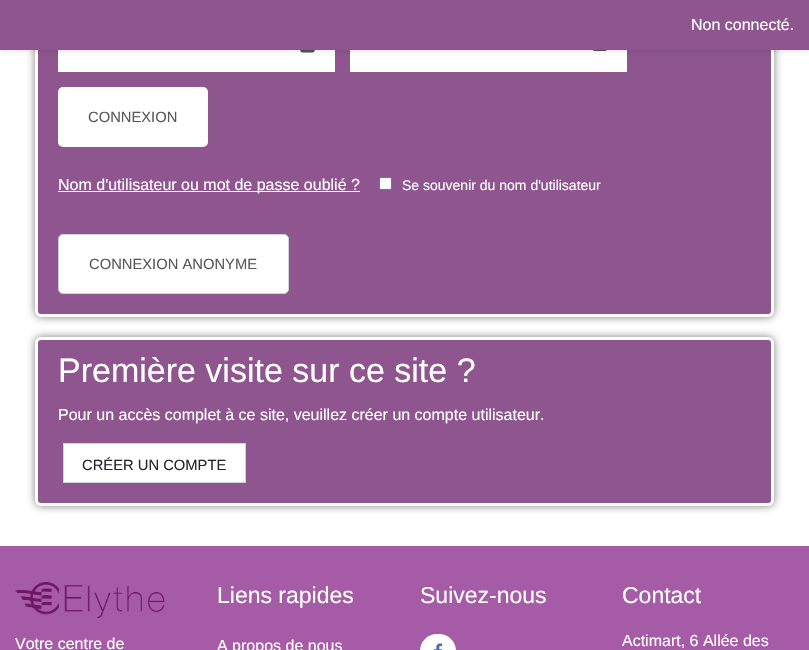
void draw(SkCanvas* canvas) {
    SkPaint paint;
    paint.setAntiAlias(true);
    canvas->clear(0xFFFFFFFF);
    paint.setColor(0x80000000);
    paint.setMaskFilter(SkMaskFilter::MakeBlur(kNormal_SkBlurStyle, 4.5f));
    canvas->drawRoundRect(SkRect::MakeXYWH(35, -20, 739, 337), 6, 6, paint);
    paint.setMaskFilter(nullptr);
    paint.setColor(0xFF8E558E);
    canvas->drawRoundRect(SkRect::MakeXYWH(36.5f, -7.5f, 736, 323), 4.5f, 4.5f, paint);
    paint.setStyle(SkPaint::kStroke_Style);
    paint.setStrokeWidth(3);
    paint.setColor(0xFFFFFFFF);
    canvas->drawRoundRect(SkRect::MakeXYWH(36.5f, -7.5f, 736, 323), 4.5f, 4.5f, paint);
    paint.setStyle(SkPaint::kFill_Style);
    canvas->drawRect(SkRect::MakeXYWH(58, 50, 277, 22), paint);
    canvas->drawImageRect(SkImages::DeferredFromEncodedData(SkData::MakeFromFileName("img1.png")), SkRect::MakeXYWH(300, 50, 15, 3), SkSamplingOptions());
    canvas->drawRect(SkRect::MakeXYWH(350, 50, 277, 22), paint);
    canvas->drawImageRect(SkImages::DeferredFromEncodedData(SkData::MakeFromFileName("img2.png")), SkRect::MakeXYWH(593, 50, 14, 1), SkSamplingOptions());
    paint.setColor(0x14000000);
    paint.setMaskFilter(SkMaskFilter::MakeBlur(kNormal_SkBlurStyle, 2));
    canvas->drawRect(SkRect::MakeXYWH(0, 2, 809, 50), paint);
    paint.setMaskFilter(nullptr);
    paint.setColor(0xFF8E558E);
    canvas->drawRect(SkRect::MakeXYWH(0, 0, 809, 50), paint);
    SkFont font1(fontMgr->matchFamilyStyle("Liberation Sans", SkFontStyle::Normal()), 16);
    font1.setSubpixel(true);
    paint.setColor(0xFFFFFFFF);
    canvas->drawString("Non connecté.", 691, 30, font1, paint);
    canvas->drawRoundRect(SkRect::MakeXYWH(58, 87, 150, 60), 5, 5, paint);
    SkFont font2(fontMgr->matchFamilyStyle("Liberation Sans", SkFontStyle::Normal()), 14.75f);
    font2.setSubpixel(true);
    paint.setColor(0xFF585858);
    canvas->drawString("CONNEXION", 88, 122, font2, paint);
    paint.setColor(0xFFFFFFFF);
    canvas->drawRect(SkRect::MakeXYWH(58, 191, 302, 1), paint);
    canvas->drawString("Nom d'utilisateur ou mot de passe oublié ?", 58, 190, font1, paint);
    canvas->drawRoundRect(SkRect::MakeXYWH(379.5f, 177.5f, 12, 12), 1.5f, 1.5f, paint);
    paint.setStyle(SkPaint::kStroke_Style);
    paint.setStrokeWidth(1);
    paint.setColor(0xFF767676);
    canvas->drawRoundRect(SkRect::MakeXYWH(379.5f, 177.5f, 12, 12), 1.5f, 1.5f, paint);
    SkFont font3(fontMgr->matchFamilyStyle("Liberation Sans", SkFontStyle::Normal()), 14);
    font3.setSubpixel(true);
    paint.setStyle(SkPaint::kFill_Style);
    paint.setColor(0xFFFFFFFF);
    canvas->drawString("Se souvenir du nom d'utilisateur", 402, 190, font3, paint);
    canvas->drawRoundRect(SkRect::MakeXYWH(58.5f, 234.5f, 230, 59), 4.5f, 4.5f, paint);
    paint.setStyle(SkPaint::kStroke_Style);
    paint.setColor(0xFFCED4DA);
    canvas->drawRoundRect(SkRect::MakeXYWH(58.5f, 234.5f, 230, 59), 4.5f, 4.5f, paint);
    paint.setStyle(SkPaint::kFill_Style);
    paint.setColor(0xFF585858);
    canvas->drawString("CONNEXION ANONYME", 89, 269, font2, paint);
    paint.setColor(0x80000000);
    paint.setMaskFilter(SkMaskFilter::MakeBlur(kNormal_SkBlurStyle, 4.5f));
    canvas->drawRoundRect(SkRect::MakeXYWH(35, 337, 739, 169), 6, 6, paint);
    paint.setMaskFilter(nullptr);
    paint.setColor(0xFF8E558E);
    canvas->drawRoundRect(SkRect::MakeXYWH(36.5f, 338.5f, 736, 166), 4.5f, 4.5f, paint);
    paint.setStyle(SkPaint::kStroke_Style);
    paint.setStrokeWidth(3);
    paint.setColor(0xFFFFFFFF);
    canvas->drawRoundRect(SkRect::MakeXYWH(36.5f, 338.5f, 736, 166), 4.5f, 4.5f, paint);
    SkFont font4(fontMgr->matchFamilyStyle("Liberation Sans", SkFontStyle::Normal()), 34);
    font4.setSubpixel(true);
    paint.setStyle(SkPaint::kFill_Style);
    canvas->drawString("Première visite sur ce site ?", 58, 382, font4, paint);
    canvas->drawString("Pour un accès complet à ce site, veuillez créer un compte utilisateur.", 58, 420, font1, paint);
    canvas->drawRect(SkRect::MakeXYWH(63.5f, 443.5f, 182, 39), paint);
    paint.setStyle(SkPaint::kStroke_Style);
    paint.setStrokeWidth(1);
    paint.setColor(0xFFCED4DA);
    canvas->drawRect(SkRect::MakeXYWH(63.5f, 443.5f, 182, 39), paint);
    paint.setStyle(SkPaint::kFill_Style);
    paint.setColor(0xFF212529);
    canvas->drawString("CRÉER UN COMPTE", 82, 470, font2, paint);
    paint.setColor(0xFFA55BA5);
    canvas->drawRect(SkRect::MakeXYWH(0, 546, 809, 104), paint);
    canvas->drawImageRect(SkImages::DeferredFromEncodedData(SkData::MakeFromFileName("img3.png")), SkRect::MakeXYWH(15, 582, 150, 36), SkSamplingOptions());
    paint.setColor(0xFFFFFFFF);
    canvas->drawString("Votre centre de", 15, 649, font1, paint);
    SkFont font5(fontMgr->matchFamilyStyle("Liberation Sans", SkFontStyle::Normal()), 23);
    font5.setSubpixel(true);
    canvas->drawString("Liens rapides", 217, 603, font5, paint);
    canvas->drawString("A propos de nous", 217, 651, font1, paint);
    canvas->drawString("Suivez-nous", 420, 603, font5, paint);
    canvas->drawRoundRect(SkRect::MakeXYWH(420, 634, 36, 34), 18, 18, paint);
    canvas->drawImageRect(SkImages::DeferredFromEncodedData(SkData::MakeFromFileName("img4.png")), SkRect::MakeXYWH(433, 643, 10, 7), SkSamplingOptions());
    canvas->drawString("Contact", 622, 603, font5, paint);
    canvas->drawString("Actimart, 6 Allée des", 622, 646, font1, paint);
}
